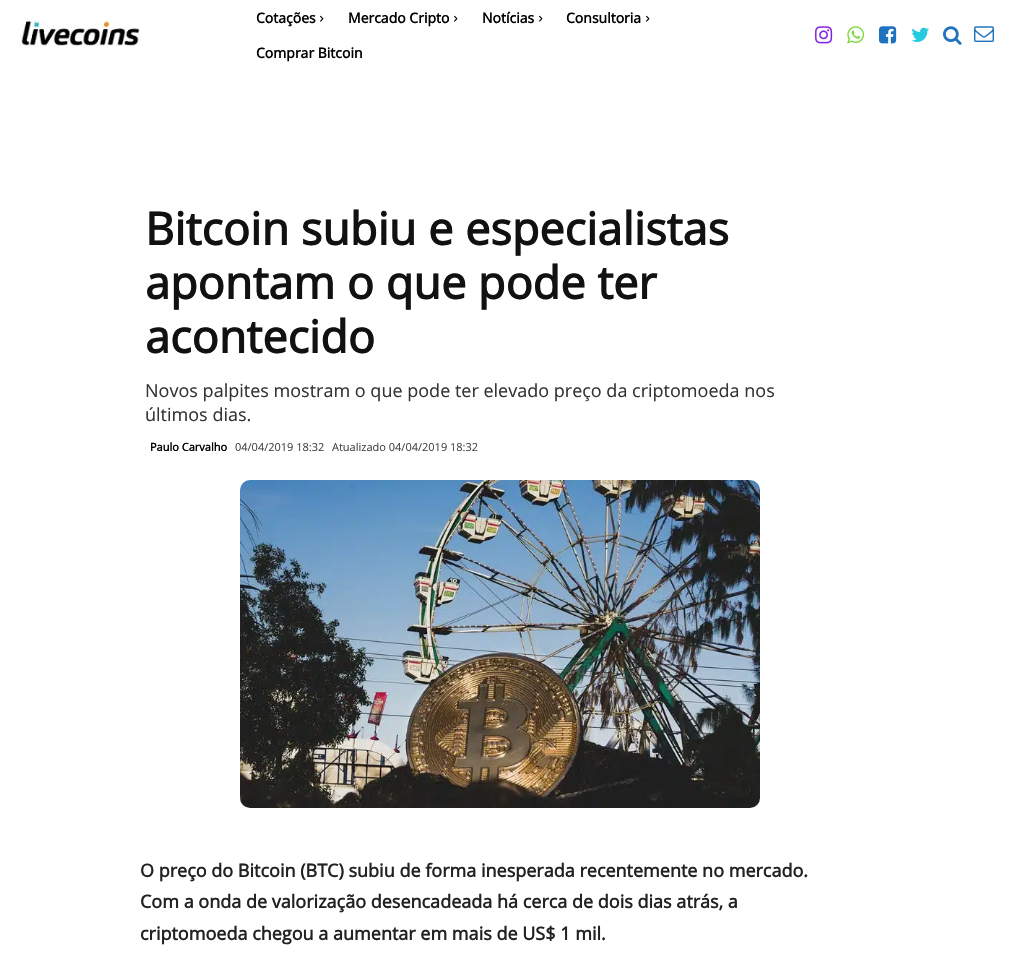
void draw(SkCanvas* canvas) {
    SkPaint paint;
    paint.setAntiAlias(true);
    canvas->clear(0xFFFFFFFF);
    canvas->drawImageRect(SkImages::DeferredFromEncodedData(SkData::MakeFromFileName("img1.png")), SkRect::MakeXYWH(20, 20, 120, 26), SkSamplingOptions());
    SkFont font1(fontMgr->matchFamilyStyle("Open Sans", SkFontStyle::Bold()), 14);
    font1.setSubpixel(true);
    paint.setColor(0xFF000000);
    canvas->drawString("Cotações", 256, 23, font1, paint);
    canvas->drawImageRect(SkImages::DeferredFromEncodedData(SkData::MakeFromFileName("img2.png")), SkRect::MakeXYWH(320, 15, 4, 7), SkSamplingOptions());
    canvas->drawString("Mercado Cripto", 348, 23, font1, paint);
    canvas->drawImageRect(SkImages::DeferredFromEncodedData(SkData::MakeFromFileName("img2.png")), SkRect::MakeXYWH(454, 15, 4, 7), SkSamplingOptions());
    canvas->drawString("Notícias", 482, 23, font1, paint);
    canvas->drawImageRect(SkImages::DeferredFromEncodedData(SkData::MakeFromFileName("img2.png")), SkRect::MakeXYWH(539, 15, 4, 7), SkSamplingOptions());
    canvas->drawString("Consultoria", 566, 23, font1, paint);
    canvas->drawImageRect(SkImages::DeferredFromEncodedData(SkData::MakeFromFileName("img2.png")), SkRect::MakeXYWH(646, 15, 4, 7), SkSamplingOptions());
    canvas->drawString("Comprar Bitcoin", 256, 58, font1, paint);
    canvas->drawImageRect(SkImages::DeferredFromEncodedData(SkData::MakeFromFileName("img3.png")), SkRect::MakeXYWH(815, 26, 18, 18), SkSamplingOptions());
    canvas->drawImageRect(SkImages::DeferredFromEncodedData(SkData::MakeFromFileName("img4.png")), SkRect::MakeXYWH(847, 26, 18, 18), SkSamplingOptions());
    canvas->drawImageRect(SkImages::DeferredFromEncodedData(SkData::MakeFromFileName("img5.png")), SkRect::MakeXYWH(879, 26, 18, 18), SkSamplingOptions());
    canvas->drawImageRect(SkImages::DeferredFromEncodedData(SkData::MakeFromFileName("img6.png")), SkRect::MakeXYWH(911, 27, 18, 15), SkSamplingOptions());
    canvas->drawImageRect(SkImages::DeferredFromEncodedData(SkData::MakeFromFileName("img7.png")), SkRect::MakeXYWH(943, 26, 19, 19), SkSamplingOptions());
    canvas->drawImageRect(SkImages::DeferredFromEncodedData(SkData::MakeFromFileName("img8.png")), SkRect::MakeXYWH(974, 26, 20, 16), SkSamplingOptions());
    SkFont font2(fontMgr->matchFamilyStyle("Open Sans", SkFontStyle::Bold()), 45);
    font2.setSubpixel(true);
    paint.setColor(0xFF111111);
    canvas->drawString("Bitcoin subiu e especialistas", 145, 245, font2, paint);
    canvas->drawString("apontam o que pode ter", 145, 299, font2, paint);
    canvas->drawString("acontecido", 145, 353, font2, paint);
    SkFont font3(fontMgr->matchFamilyStyle("Open Sans", SkFontStyle::Normal()), 18);
    font3.setSubpixel(true);
    paint.setColor(0xFF333333);
    canvas->drawString("Novos palpites mostram o que pode ter elevado preço da criptomoeda nos", 145, 397, font3, paint);
    canvas->drawString("últimos dias.", 145, 421, font3, paint);
    SkFont font4(fontMgr->matchFamilyStyle("Open Sans", SkFontStyle::Bold()), 11);
    font4.setSubpixel(true);
    paint.setColor(0xFF000000);
    canvas->drawString("Paulo Carvalho", 150, 451, font4, paint);
    SkFont font5(fontMgr->matchFamilyStyle("Open Sans", SkFontStyle::Normal()), 11);
    font5.setSubpixel(true);
    paint.setColor(0xFF444444);
    canvas->drawString("04/04/2019 18:32", 235, 451, font5, paint);
    canvas->drawString("Atualizado 04/04/2019 18:32", 332, 451, font5, paint);
    canvas->drawImageRect(SkImages::DeferredFromEncodedData(SkData::MakeFromFileName("img9.png")), SkRect::MakeXYWH(240, 480, 520, 328), SkSamplingOptions());
    SkFont font6(fontMgr->matchFamilyStyle("Open Sans", SkFontStyle::Bold()), 18);
    font6.setSubpixel(true);
    paint.setColor(0xFF222222);
    canvas->drawString("O preço do Bitcoin (BTC) subiu de forma inesperada recentemente no mercado.", 140, 877, font6, paint);
    canvas->drawString("Com a onda de valorização desencadeada há cerca de dois dias atrás, a", 140, 908, font6, paint);
    canvas->drawString("criptomoeda chegou a aumentar em mais de US$ 1 mil.", 140, 940, font6, paint);
}
